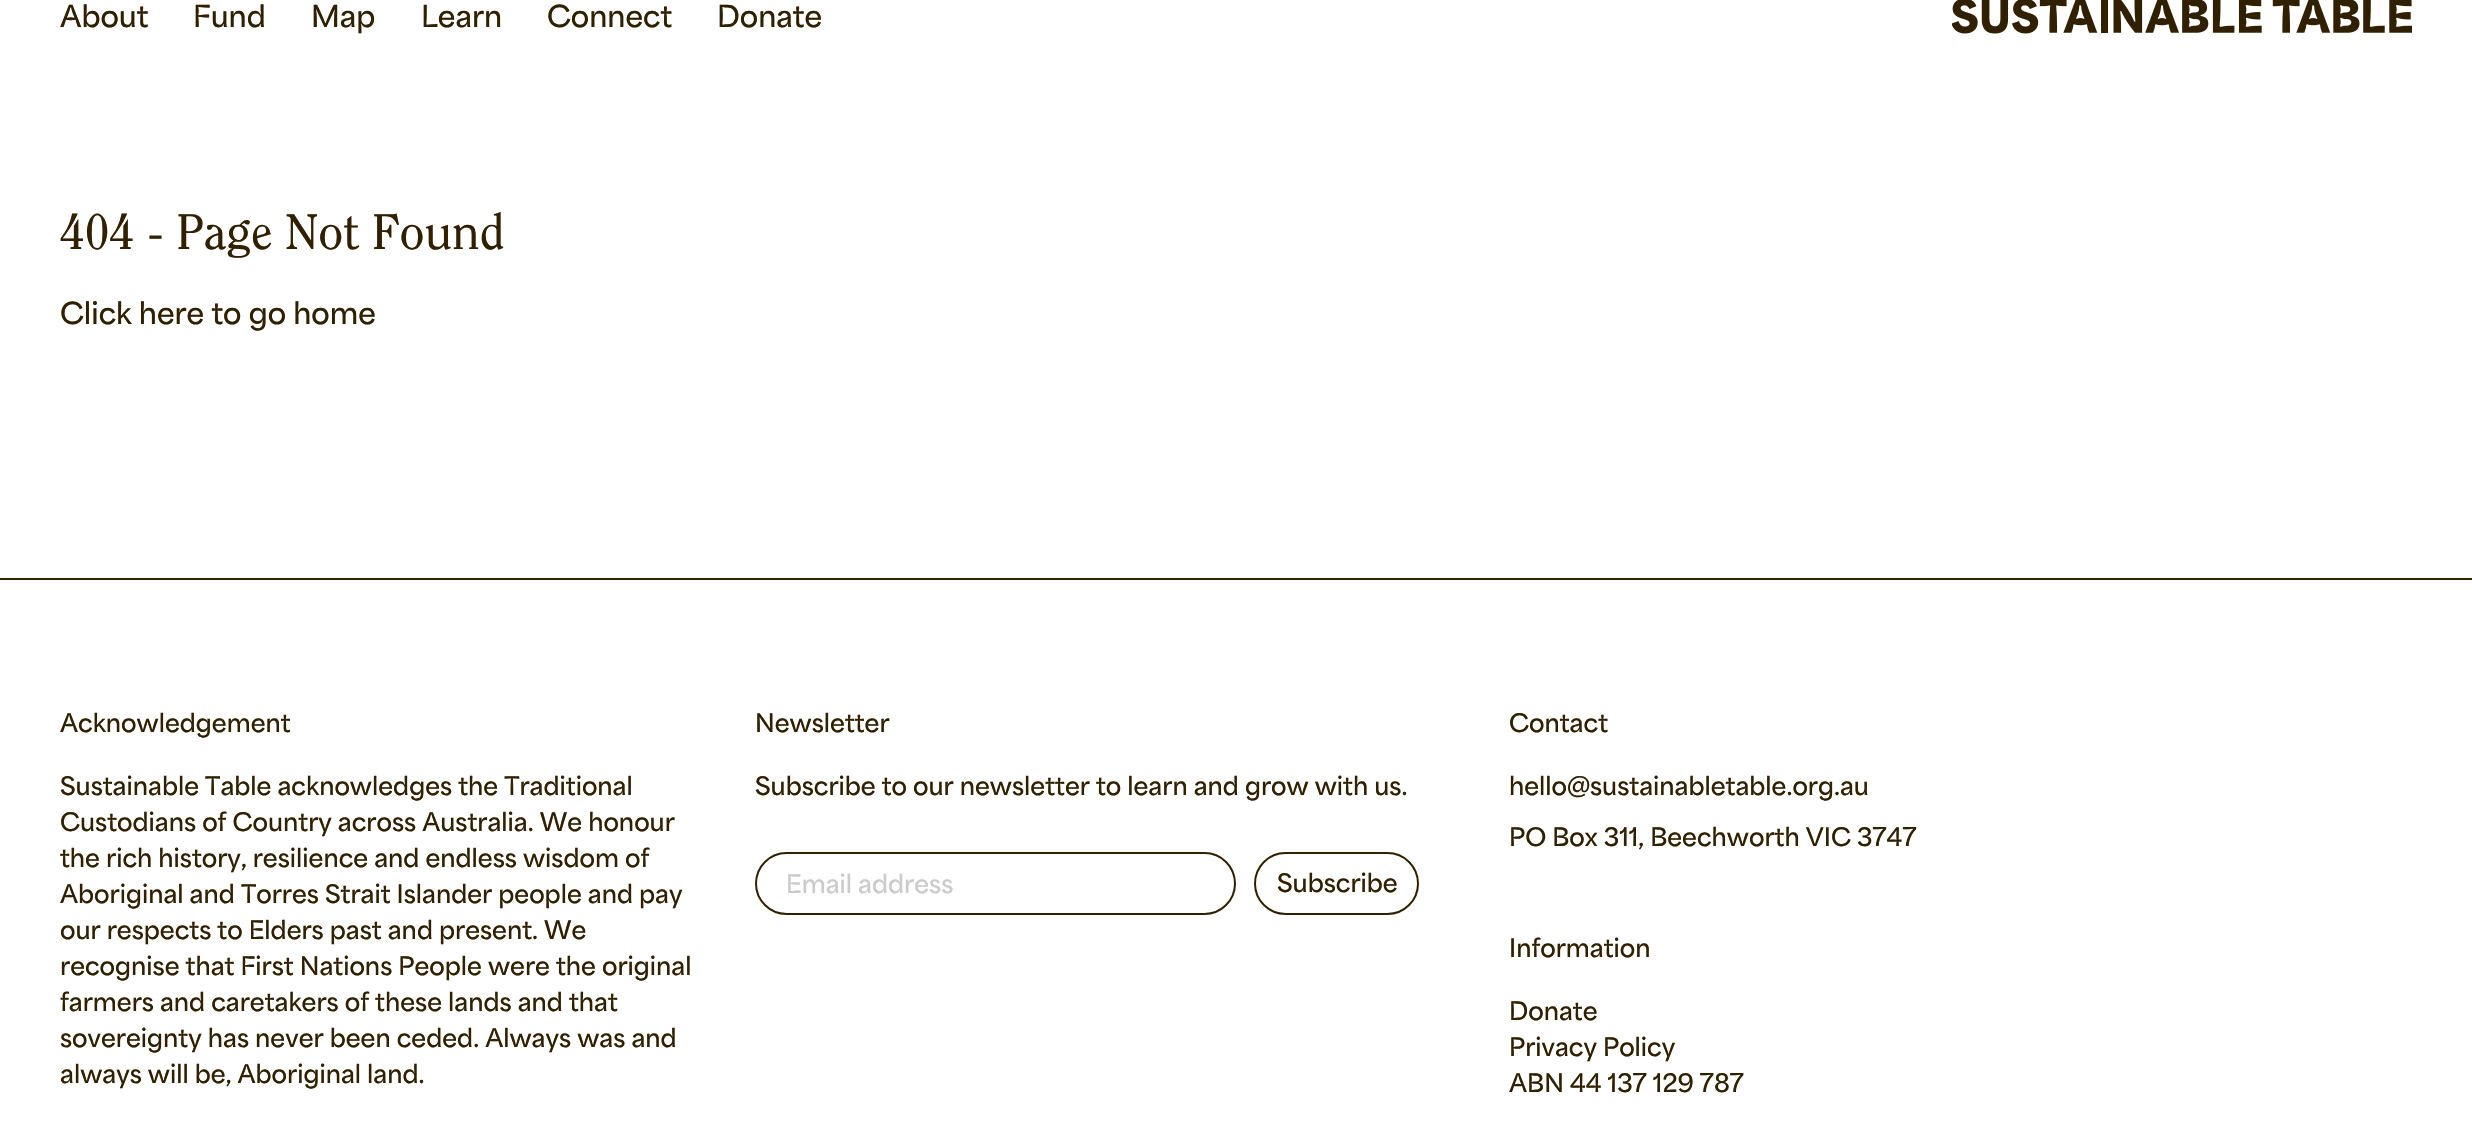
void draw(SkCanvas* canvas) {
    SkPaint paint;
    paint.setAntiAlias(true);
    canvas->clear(0xFFFFFFFF);
    SkFont font1(fontMgr->matchFamilyStyle("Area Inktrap", SkFontStyle::Bold()), 28.5f);
    font1.setSubpixel(true);
    paint.setColor(0xFF302000);
    canvas->drawString("About", 60, 27, font1, paint);
    canvas->drawString("Fund", 193, 27, font1, paint);
    canvas->drawString("Map", 311, 27, font1, paint);
    canvas->drawString("Learn", 421, 27, font1, paint);
    canvas->drawString("Connect", 547, 27, font1, paint);
    canvas->drawString("Donate", 717, 27, font1, paint);
    canvas->drawImageRect(SkImages::DeferredFromEncodedData(SkData::MakeFromFileName("img1.png")), SkRect::MakeXYWH(1952, 0, 460, 34), SkSamplingOptions());
    SkFont font2(fontMgr->matchFamilyStyle("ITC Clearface", SkFontStyle::Normal()), 49.5f);
    font2.setSubpixel(true);
    canvas->drawString("404 - Page Not Found", 60, 249, font2, paint);
    canvas->drawString("Click here to go home", 60, 324, font1, paint);
    canvas->drawRect(SkRect::MakeXYWH(0, 578, 2472, 2), paint);
    SkFont font3(fontMgr->matchFamilyStyle("Area Inktrap", SkFontStyle::Bold()), 24);
    font3.setSubpixel(true);
    canvas->drawString("Acknowledgement", 60, 732, font3, paint);
    canvas->drawString("Sustainable Table acknowledges the Traditional", 60, 795, font3, paint);
    canvas->drawString("Custodians of Country across Australia. We honour", 60, 831, font3, paint);
    canvas->drawString("the rich history, resilience and endless wisdom of", 60, 867, font3, paint);
    canvas->drawString("Aboriginal and Torres Strait Islander people and pay", 60, 903, font3, paint);
    canvas->drawString("our respects to Elders past and present. We", 60, 939, font3, paint);
    canvas->drawString("recognise that First Nations People were the original", 60, 975, font3, paint);
    canvas->drawString("farmers and caretakers of these lands and that", 60, 1011, font3, paint);
    canvas->drawString("sovereignty has never been ceded. Always was and", 60, 1047, font3, paint);
    canvas->drawString("always will be, Aboriginal land.", 60, 1083, font3, paint);
    canvas->drawString("Newsletter", 755, 732, font3, paint);
    canvas->drawString("Subscribe to our newsletter to learn and grow with us.", 755, 795, font3, paint);
    paint.setStyle(SkPaint::kStroke_Style);
    paint.setStrokeWidth(2);
    canvas->drawRoundRect(SkRect::MakeXYWH(756, 853, 479, 61), 30.5f, 30.5f, paint);
    paint.setStyle(SkPaint::kFill_Style);
    paint.setColor(0xFFCBCBCB);
    canvas->drawString("Email address", 786, 893, font3, paint);
    paint.setStyle(SkPaint::kStroke_Style);
    paint.setColor(0xFF302000);
    canvas->drawRoundRect(SkRect::MakeXYWH(1255, 853, 163, 61), 30.5f, 30.5f, paint);
    paint.setStyle(SkPaint::kFill_Style);
    canvas->drawString("Subscribe", 1277, 892, font3, paint);
    canvas->drawString("Contact", 1509, 732, font3, paint);
    canvas->drawString("hello@sustainabletable.org.au", 1509, 795, font3, paint);
    canvas->drawString("PO Box 311, Beechworth VIC 3747", 1509, 846, font3, paint);
    canvas->drawString("Information", 1509, 957, font3, paint);
    canvas->drawString("Donate", 1509, 1020, font3, paint);
    canvas->drawString("Privacy Policy", 1509, 1056, font3, paint);
    canvas->drawString("ABN 44 137 129 787", 1509, 1092, font3, paint);
}
